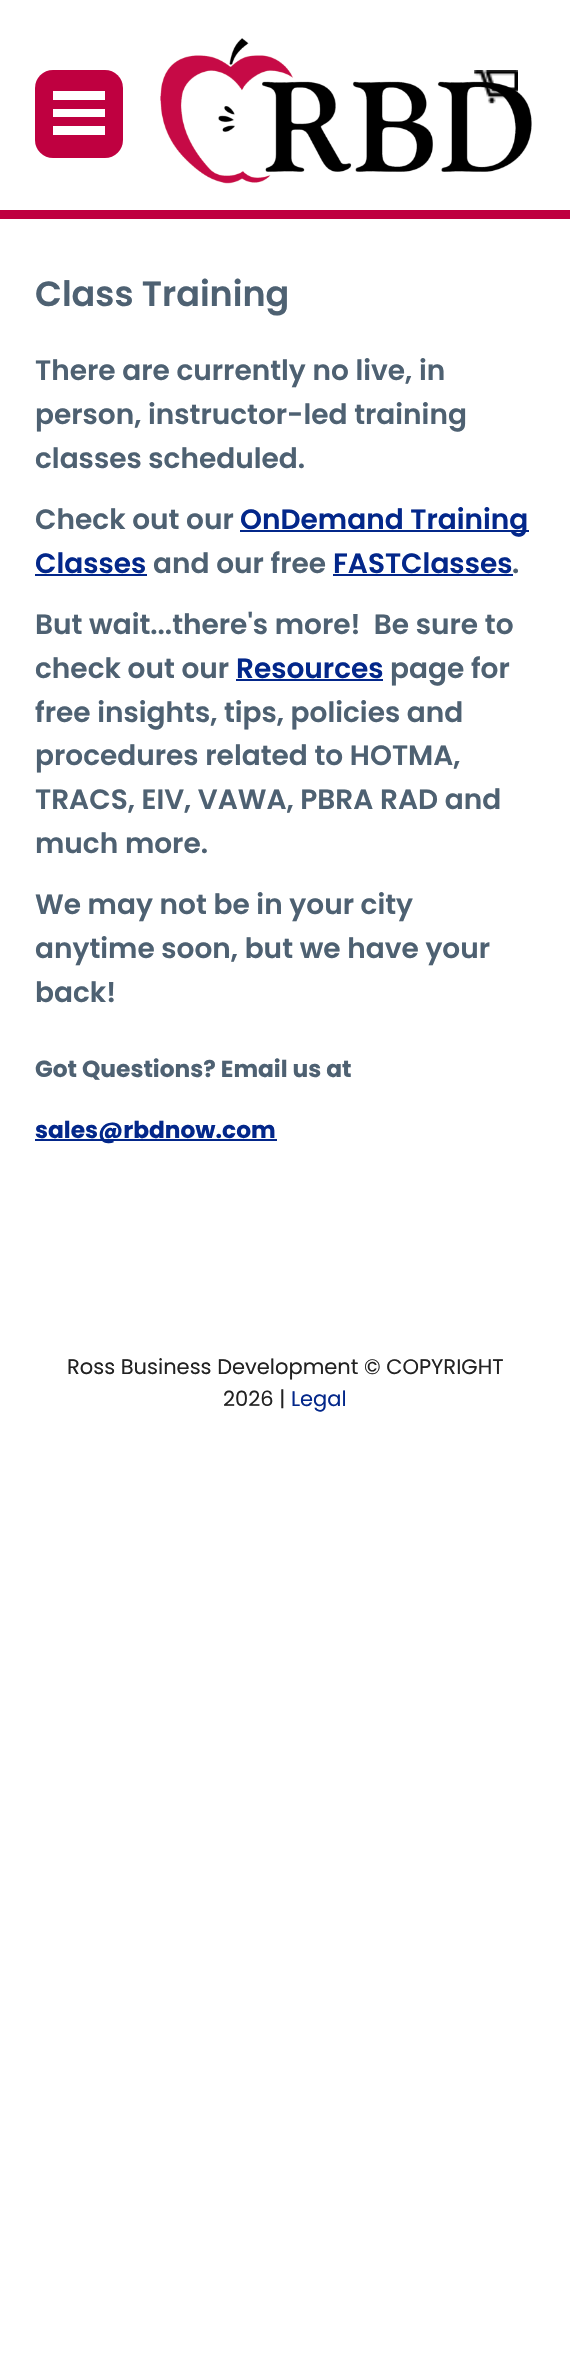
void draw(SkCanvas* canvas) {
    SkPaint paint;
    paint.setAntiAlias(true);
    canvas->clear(0xFFFFFFFF);
    paint.setColor(0xFFBF0040);
    canvas->drawRect(SkRect::MakeXYWH(0, 210, 570, 9), paint);
    canvas->drawRoundRect(SkRect::MakeXYWH(35, 70, 88, 88), 18, 18, paint);
    paint.setColor(0xFFFFFFFF);
    canvas->drawRect(SkRect::MakeXYWH(53, 91, 52, 9), paint);
    canvas->drawRect(SkRect::MakeXYWH(53, 109, 52, 8), paint);
    canvas->drawRect(SkRect::MakeXYWH(53, 126, 52, 9), paint);
    canvas->drawImageRect(SkImages::DeferredFromEncodedData(SkData::MakeFromFileName("img1.png")), SkRect::MakeXYWH(160, 38, 372, 146), SkSamplingOptions());
    canvas->drawImageRect(SkImages::DeferredFromEncodedData(SkData::MakeFromFileName("img2.png")), SkRect::MakeXYWH(474, 70, 44, 34), SkSamplingOptions());
    SkFont font1(fontMgr->matchFamilyStyle("Poppins", SkFontStyle(600, SkFontStyle::kNormal_Width, SkFontStyle::kUpright_Slant)), 35);
    font1.setSubpixel(true);
    paint.setColor(0xFF4E6172);
    canvas->drawString("Class Training", 35, 306, font1, paint);
    SkFont font2(fontMgr->matchFamilyStyle("Poppins", SkFontStyle(600, SkFontStyle::kNormal_Width, SkFontStyle::kUpright_Slant)), 28);
    font2.setSubpixel(true);
    canvas->drawString("There are currently no live, in", 35, 380, font2, paint);
    canvas->drawString("person, instructor-led training", 35, 424, font2, paint);
    canvas->drawString("classes scheduled.", 35, 468, font2, paint);
    canvas->drawString("Check out our", 35, 529, font2, paint);
    paint.setColor(0xFF03278A);
    canvas->drawRect(SkRect::MakeXYWH(240, 530, 289, 2), paint);
    canvas->drawString("OnDemand Training", 240, 529, font2, paint);
    canvas->drawString("Classes", 35, 573, font2, paint);
    canvas->drawRect(SkRect::MakeXYWH(35, 574, 112, 2), paint);
    paint.setColor(0xFF4E6172);
    canvas->drawString("and our free", 153, 573, font2, paint);
    paint.setColor(0xFF03278A);
    canvas->drawString("FASTClasses", 333, 573, font2, paint);
    paint.setColor(0xFF4E6172);
    canvas->drawString(".", 512, 573, font2, paint);
    paint.setColor(0xFF03278A);
    canvas->drawRect(SkRect::MakeXYWH(333, 574, 180, 2), paint);
    paint.setColor(0xFF4E6172);
    canvas->drawString("But wait...there's more!  Be sure to", 35, 634, font2, paint);
    canvas->drawString("check out our", 35, 678, font2, paint);
    paint.setColor(0xFF03278A);
    canvas->drawString("Resources", 236, 678, font2, paint);
    canvas->drawRect(SkRect::MakeXYWH(236, 679, 147, 2), paint);
    paint.setColor(0xFF4E6172);
    canvas->drawString("page for", 390, 678, font2, paint);
    canvas->drawString("free insights, tips, policies and", 35, 722, font2, paint);
    canvas->drawString("procedures related to HOTMA,", 35, 765, font2, paint);
    canvas->drawString("TRACS, EIV, VAWA, PBRA RAD and", 35, 809, font2, paint);
    canvas->drawString("much more.", 35, 853, font2, paint);
    canvas->drawString("We may not be in your city", 35, 914, font2, paint);
    canvas->drawString("anytime soon, but we have your", 35, 958, font2, paint);
    canvas->drawString("back!", 35, 1002, font2, paint);
    SkFont font3(fontMgr->matchFamilyStyle("Poppins", SkFontStyle::Bold()), 23.3f);
    font3.setSubpixel(true);
    canvas->drawString("Got Questions? Email us at", 35, 1077, font3, paint);
    paint.setColor(0xFF03278A);
    canvas->drawRect(SkRect::MakeXYWH(35, 1139, 242, 2), paint);
    canvas->drawString("sales@rbdnow.com", 35, 1138, font3, paint);
    SkFont font4(fontMgr->matchFamilyStyle("Poppins", SkFontStyle::Normal()), 21);
    font4.setSubpixel(true);
    paint.setColor(0xFF222222);
    canvas->drawString("Ross Business Development © COPYRIGHT", 67, 1374, font4, paint);
    canvas->drawString("2026 |", 223, 1406, font4, paint);
    paint.setColor(0xFF03278A);
    canvas->drawString("Legal", 291, 1406, font4, paint);
}
